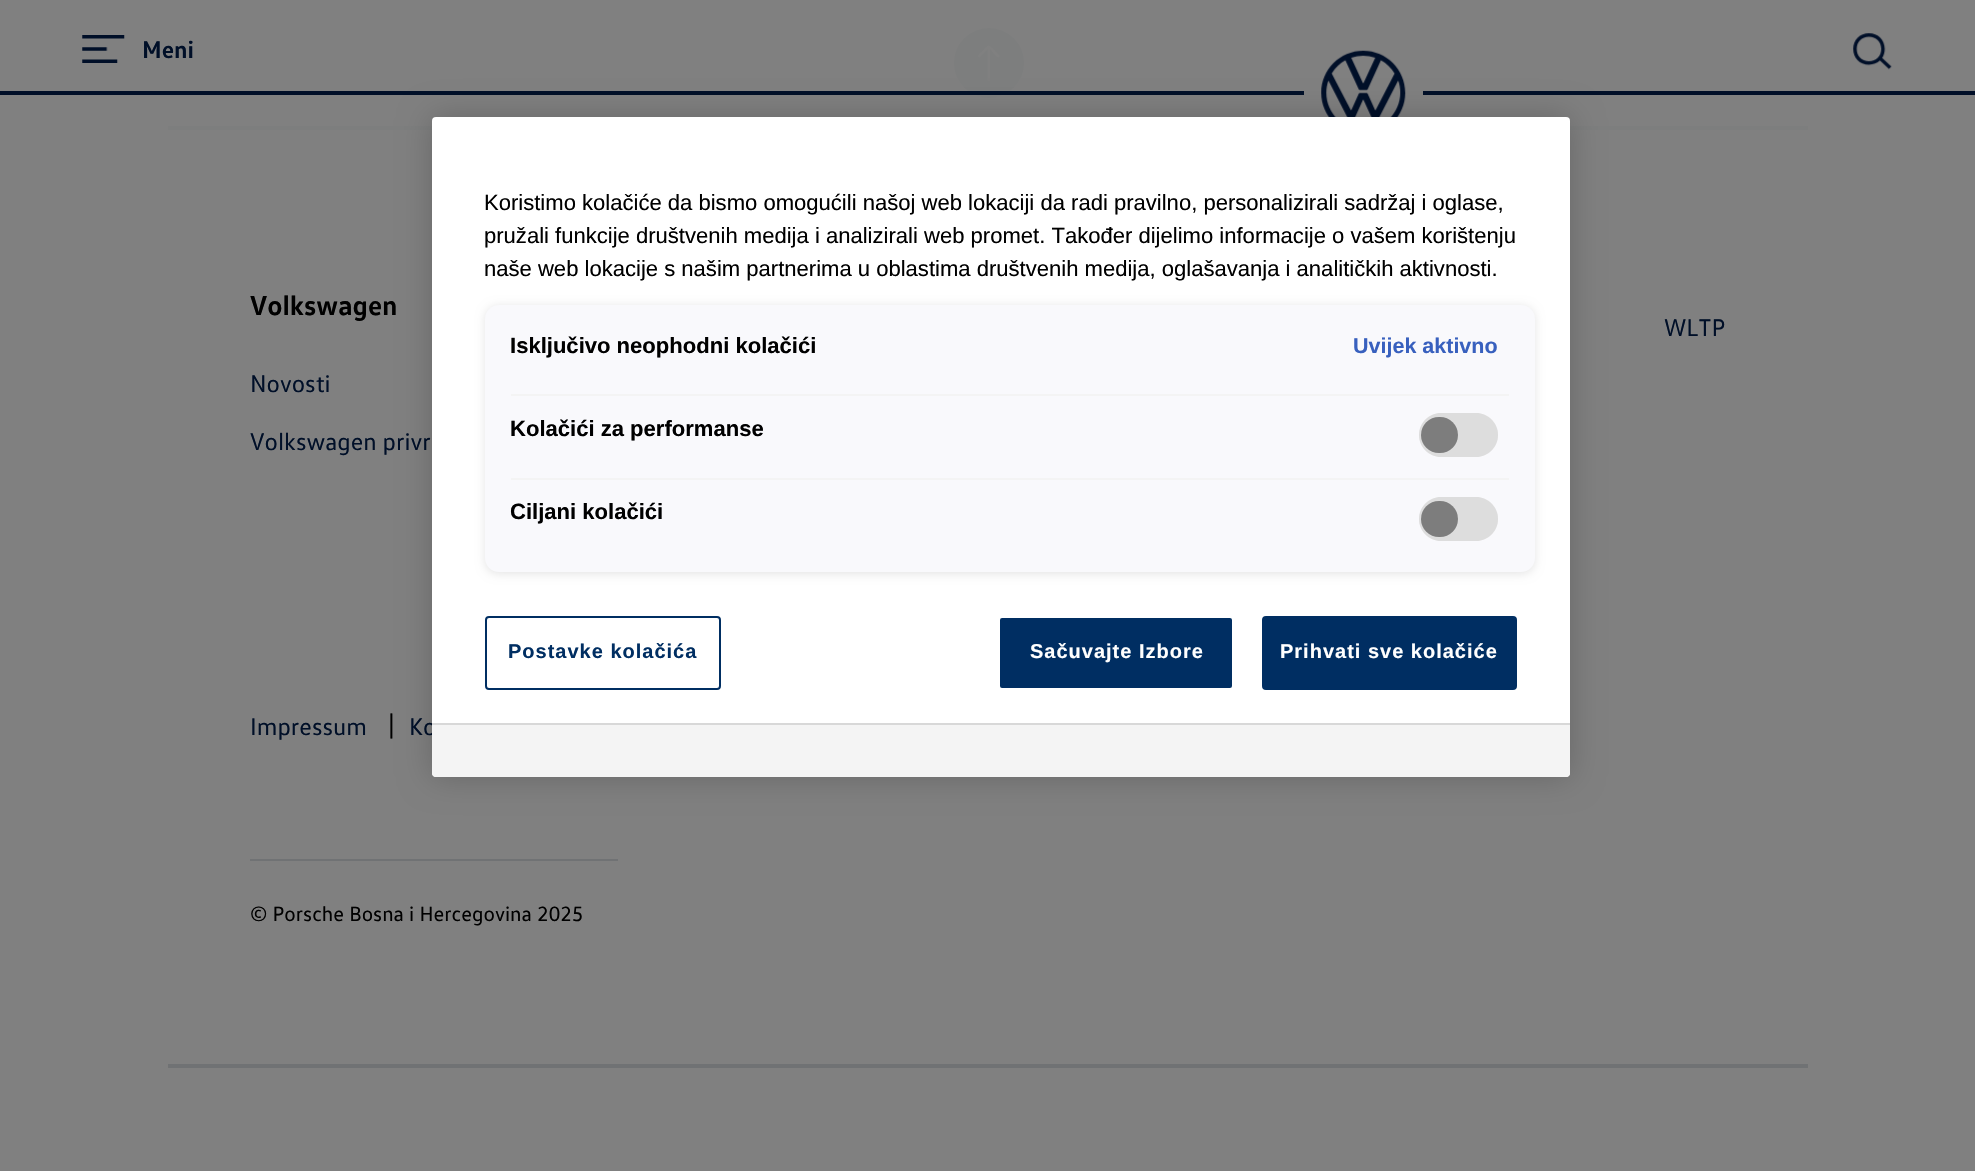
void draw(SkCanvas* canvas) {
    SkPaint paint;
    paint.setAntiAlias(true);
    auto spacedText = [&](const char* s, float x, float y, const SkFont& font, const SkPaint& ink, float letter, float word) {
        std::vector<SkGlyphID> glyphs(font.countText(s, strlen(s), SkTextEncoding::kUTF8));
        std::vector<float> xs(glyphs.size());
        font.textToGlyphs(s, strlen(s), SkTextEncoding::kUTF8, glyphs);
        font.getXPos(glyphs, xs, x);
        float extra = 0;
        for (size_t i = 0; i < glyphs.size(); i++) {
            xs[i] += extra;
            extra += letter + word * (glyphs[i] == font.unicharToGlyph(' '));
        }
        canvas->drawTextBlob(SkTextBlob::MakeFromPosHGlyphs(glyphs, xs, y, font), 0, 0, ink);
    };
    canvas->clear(0xFF808080);
    canvas->drawImageRect(SkImages::DeferredFromEncodedData(SkData::MakeFromFileName("img1.png")), SkRect::MakeXYWH(82, 35, 43, 28), SkSamplingOptions());
    SkFont font1(fontMgr->matchFamilyStyle("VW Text", SkFontStyle::Bold()), 24.5f);
    font1.setSubpixel(true);
    paint.setColor(0xFF000F28);
    canvas->drawString("Meni", 142, 58, font1, paint);
    paint.setColor(0xFF7D7E7E);
    canvas->drawCircle(989, 63, 35, paint);
    paint.setColor(0xFF000F28);
    canvas->drawRect(SkRect::MakeXYWH(0, 91, 1304, 4), paint);
    canvas->drawImageRect(SkImages::DeferredFromEncodedData(SkData::MakeFromFileName("img2.png")), SkRect::MakeXYWH(1321, 50, 85, 67), SkSamplingOptions());
    canvas->drawRect(SkRect::MakeXYWH(1423, 91, 552, 4), paint);
    canvas->drawImageRect(SkImages::DeferredFromEncodedData(SkData::MakeFromFileName("img3.png")), SkRect::MakeXYWH(1853, 33, 39, 37), SkSamplingOptions());
    canvas->drawImageRect(SkImages::DeferredFromEncodedData(SkData::MakeFromFileName("img4.png")), SkRect::MakeXYWH(978, 45, 22, 36), SkSamplingOptions());
    paint.setColor(0xFF7D7E7E);
    canvas->drawRect(SkRect::MakeXYWH(168, 126, 1640, 4), paint);
    SkFont font2(fontMgr->matchFamilyStyle("VW Text", SkFontStyle::Bold()), 28);
    font2.setSubpixel(true);
    paint.setColor(0xFF000000);
    canvas->drawString("Volkswagen", 250, 315, font2, paint);
    SkFont font3(fontMgr->matchFamilyStyle("VW Text", SkFontStyle::Normal()), 24.5f);
    font3.setSubpixel(true);
    paint.setColor(0xFF000F28);
    canvas->drawString("Novosti", 250, 392, font3, paint);
    canvas->drawString("Volkswagen privr", 250, 450, font3, paint);
    canvas->drawString("WLTP", 1664, 336, font3, paint);
    canvas->drawString("Impressum", 250, 735, font3, paint);
    SkFont font4(fontMgr->matchFamilyStyle("VW Text", SkFontStyle::Normal()), 28);
    font4.setSubpixel(true);
    paint.setColor(0xFF000000);
    canvas->drawString("|", 388, 733, font4, paint);
    paint.setColor(0xFF000F28);
    canvas->drawString("Ko", 409, 735, font3, paint);
    paint.setColor(0xFF707274);
    canvas->drawRect(SkRect::MakeXYWH(250, 859, 368, 2), paint);
    SkFont font5(fontMgr->matchFamilyStyle("VW Text", SkFontStyle::Normal()), 21);
    font5.setSubpixel(true);
    paint.setColor(0xFF000000);
    canvas->drawString("© Porsche Bosna i Hercegovina 2025", 250, 921, font5, paint);
    paint.setColor(0xFF707274);
    canvas->drawRect(SkRect::MakeXYWH(168, 1064, 1640, 4), paint);
    paint.setColor(0x33000000);
    paint.setMaskFilter(SkMaskFilter::MakeBlur(kNormal_SkBlurStyle, 16));
    canvas->drawRoundRect(SkRect::MakeXYWH(432, 117, 1138, 660), 4, 4, paint);
    paint.setMaskFilter(nullptr);
    paint.setColor(0xFFFFFFFF);
    canvas->drawRoundRect(SkRect::MakeXYWH(432, 117, 1138, 660), 4, 4, paint);
    SkFont font6(fontMgr->matchFamilyStyle("Liberation Sans", SkFontStyle::Normal()), 22.05f);
    font6.setSubpixel(true);
    paint.setColor(0xFF000000);
    canvas->drawString("Koristimo kolačiće da bismo omogućili našoj web lokaciji da radi pravilno, personalizirali sadržaj i oglase,", 484, 210, font6, paint);
    canvas->drawString("pružali funkcije društvenih medija i analizirali web promet. Također dijelimo informacije o vašem korištenju", 484, 243, font6, paint);
    canvas->drawString("naše web lokacije s našim partnerima u oblastima društvenih medija, oglašavanja i analitičkih aktivnosti.", 484, 276, font6, paint);
    paint.setColor(0x1A000000);
    paint.setMaskFilter(SkMaskFilter::MakeBlur(kNormal_SkBlurStyle, 5));
    canvas->drawRoundRect(SkRect::MakeXYWH(485, 306, 1050, 268), 14, 14, paint);
    paint.setMaskFilter(nullptr);
    paint.setColor(0xFFF9F9FC);
    canvas->drawRoundRect(SkRect::MakeXYWH(485, 305, 1050, 267), 14, 14, paint);
    paint.setColor(0xFFF4F4F4);
    canvas->drawRect(SkRect::MakeXYWH(511, 394, 998, 2), paint);
    SkFont font7(fontMgr->matchFamilyStyle("Liberation Sans", SkFontStyle::Bold()), 22.05f);
    font7.setSubpixel(true);
    paint.setColor(0xFF000000);
    canvas->drawString("Isključivo neophodni kolačići", 510, 353, font7, paint);
    SkFont font8(fontMgr->matchFamilyStyle("Liberation Sans", SkFontStyle::Bold()), 21.5f);
    font8.setSubpixel(true);
    paint.setColor(0xFF3860BE);
    canvas->drawString("Uvijek aktivno", 1353, 353, font8, paint);
    paint.setColor(0xFFF4F4F4);
    canvas->drawRect(SkRect::MakeXYWH(511, 478, 998, 2), paint);
    paint.setColor(0xFF000000);
    canvas->drawString("Kolačići za performanse", 510, 436, font7, paint);
    paint.setColor(0xFFF2F1F1);
    canvas->drawRoundRect(SkRect::MakeXYWH(1419, 413, 79, 44), 22, 22, paint);
    paint.setColor(0xFFDDDDDD);
    canvas->drawPath(SkPathBuilder().moveTo(1441, 413).lineTo(1476, 413).cubicTo(1488, 413, 1498, 423, 1498, 435).cubicTo(1498, 447, 1488, 457, 1476, 457).lineTo(1441, 457).cubicTo(1429, 457, 1419, 447, 1419, 435).cubicTo(1419, 423, 1429, 413, 1441, 413).close().detach(), paint);
    paint.setColor(0xFF7D7D7D);
    canvas->drawRoundRect(SkRect::MakeXYWH(1421, 417, 37, 36), 18, 18, paint);
    paint.setColor(0xFF000000);
    canvas->drawString("Ciljani kolačići", 510, 519, font7, paint);
    paint.setColor(0xFFF2F1F1);
    canvas->drawRoundRect(SkRect::MakeXYWH(1419, 497, 79, 44), 22, 22, paint);
    paint.setColor(0xFFDDDDDD);
    canvas->drawPath(SkPathBuilder().moveTo(1441, 497).lineTo(1476, 497).cubicTo(1488, 497, 1498, 507, 1498, 519).cubicTo(1498, 531, 1488, 541, 1476, 541).lineTo(1441, 541).cubicTo(1429, 541, 1419, 531, 1419, 519).cubicTo(1419, 507, 1429, 497, 1441, 497).close().detach(), paint);
    paint.setColor(0xFF7D7D7D);
    canvas->drawRoundRect(SkRect::MakeXYWH(1421, 501, 37, 36), 18, 18, paint);
    paint.setStyle(SkPaint::kStroke_Style);
    paint.setStrokeWidth(2);
    paint.setColor(0xFF002E62);
    canvas->drawRoundRect(SkRect::MakeXYWH(486, 617, 234, 72), 3, 3, paint);
    SkFont font9(fontMgr->matchFamilyStyle("Liberation Sans", SkFontStyle::Bold()), 20);
    font9.setSubpixel(true);
    paint.setStyle(SkPaint::kFill_Style);
    spacedText("Postavke kolačića", 508, 658, font9, paint, 1, 0);
    canvas->drawRoundRect(SkRect::MakeXYWH(999, 617, 234, 72), 3, 3, paint);
    paint.setStyle(SkPaint::kStroke_Style);
    paint.setColor(0xFFFFFFFF);
    canvas->drawRoundRect(SkRect::MakeXYWH(999, 617, 234, 72), 3, 3, paint);
    paint.setStyle(SkPaint::kFill_Style);
    spacedText("Sačuvajte Izbore", 1030, 658, font9, paint, 1, 0);
    paint.setColor(0xFF002E62);
    canvas->drawRoundRect(SkRect::MakeXYWH(1263, 617, 253, 72), 3, 3, paint);
    paint.setStyle(SkPaint::kStroke_Style);
    canvas->drawRoundRect(SkRect::MakeXYWH(1263, 617, 253, 72), 3, 3, paint);
    paint.setStyle(SkPaint::kFill_Style);
    paint.setColor(0xFFFFFFFF);
    spacedText("Prihvati sve kolačiće", 1280, 658, font9, paint, 1, 0);
    paint.setColor(0xFFF4F4F4);
    canvas->drawPath(SkPathBuilder().moveTo(432, 723).lineTo(1570, 723).lineTo(1570, 773).cubicTo(1570, 775, 1568, 777, 1566, 777).lineTo(436, 777).cubicTo(434, 777, 432, 775, 432, 773).close().detach(), paint);
    paint.setColor(0xFFD8D8D8);
    canvas->drawRect(SkRect::MakeXYWH(432, 723, 1138, 2), paint);
}
